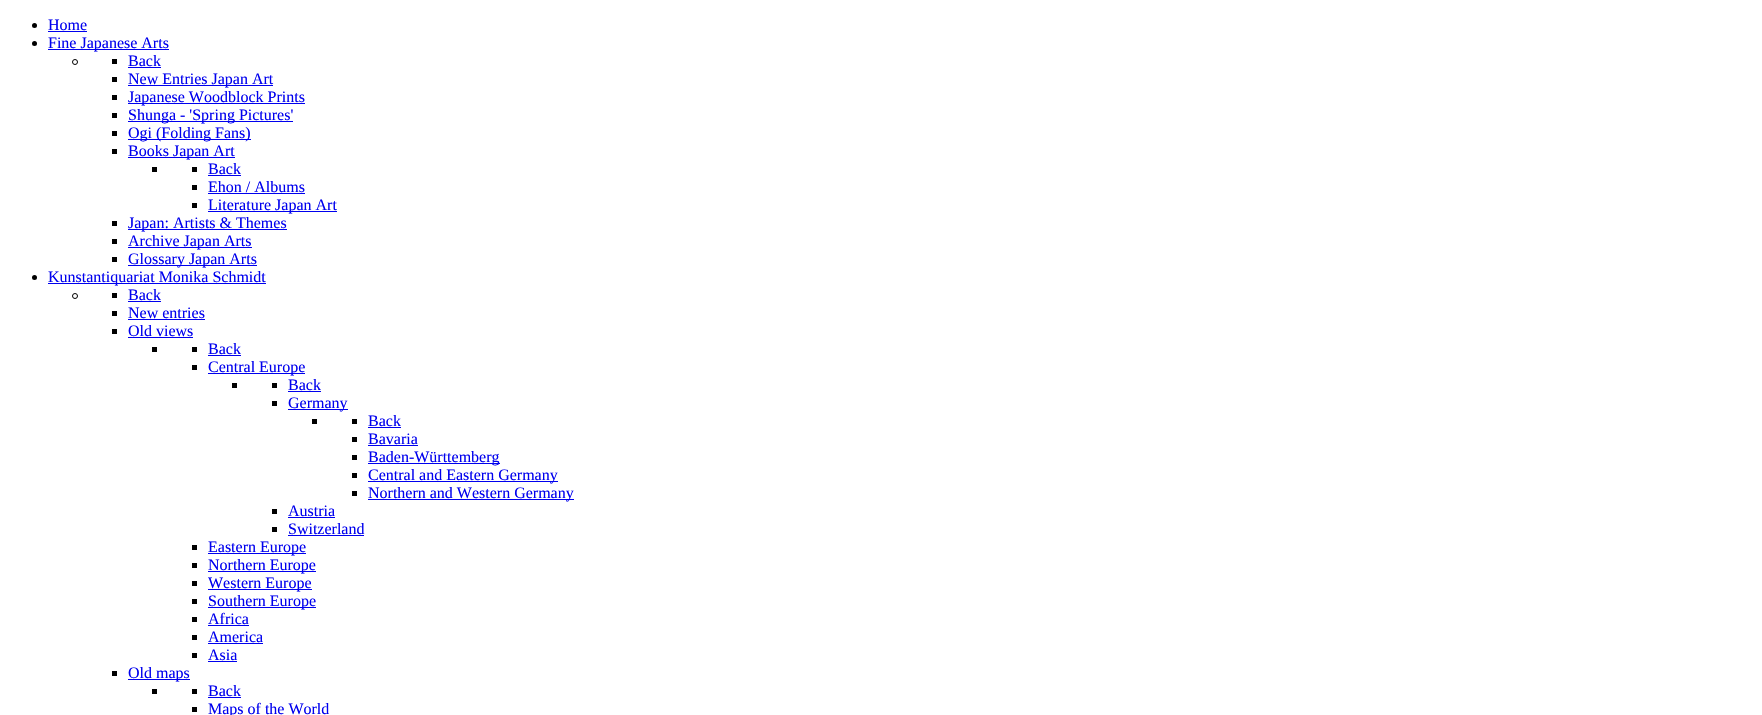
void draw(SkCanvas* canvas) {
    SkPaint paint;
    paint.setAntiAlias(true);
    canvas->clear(0xFFFFFFFF);
    paint.setColor(0xFF000000);
    canvas->drawCircle(34.5f, 25.5f, 2.5f, paint);
    SkFont font1(fontMgr->matchFamilyStyle("Liberation Serif", SkFontStyle::Normal()), 16);
    font1.setSubpixel(true);
    paint.setColor(0xFF0000EE);
    canvas->drawString("Home", 48, 30, font1, paint);
    canvas->drawRect(SkRect::MakeXYWH(48, 31, 39, 1), paint);
    paint.setColor(0xFF000000);
    canvas->drawCircle(34.5f, 43.5f, 2.5f, paint);
    paint.setColor(0xFF0000EE);
    canvas->drawRect(SkRect::MakeXYWH(48, 49, 121, 1), paint);
    canvas->drawString("Fine Japanese Arts", 48, 48, font1, paint);
    paint.setStyle(SkPaint::kStroke_Style);
    paint.setStrokeWidth(1);
    paint.setColor(0xFF000000);
    canvas->drawCircle(75, 62, 2.5f, paint);
    paint.setStyle(SkPaint::kFill_Style);
    canvas->drawRect(SkRect::MakeXYWH(112, 59, 5, 5), paint);
    paint.setColor(0xFF0000EE);
    canvas->drawString("Back", 128, 66, font1, paint);
    canvas->drawRect(SkRect::MakeXYWH(128, 67, 33, 1), paint);
    paint.setColor(0xFF000000);
    canvas->drawRect(SkRect::MakeXYWH(112, 77, 5, 5), paint);
    paint.setColor(0xFF0000EE);
    canvas->drawRect(SkRect::MakeXYWH(128, 85, 145, 1), paint);
    canvas->drawString("New Entries Japan Art", 128, 84, font1, paint);
    paint.setColor(0xFF000000);
    canvas->drawRect(SkRect::MakeXYWH(112, 95, 5, 5), paint);
    paint.setColor(0xFF0000EE);
    canvas->drawRect(SkRect::MakeXYWH(128, 103, 177, 1), paint);
    canvas->drawString("Japanese Woodblock Prints", 128, 102, font1, paint);
    paint.setColor(0xFF000000);
    canvas->drawRect(SkRect::MakeXYWH(112, 113, 5, 5), paint);
    paint.setColor(0xFF0000EE);
    canvas->drawRect(SkRect::MakeXYWH(128, 121, 165, 1), paint);
    canvas->drawString("Shunga - 'Spring Pictures'", 128, 120, font1, paint);
    paint.setColor(0xFF000000);
    canvas->drawRect(SkRect::MakeXYWH(112, 131, 5, 5), paint);
    paint.setColor(0xFF0000EE);
    canvas->drawRect(SkRect::MakeXYWH(128, 139, 123, 1), paint);
    canvas->drawString("Ogi (Folding Fans)", 128, 138, font1, paint);
    paint.setColor(0xFF000000);
    canvas->drawRect(SkRect::MakeXYWH(112, 149, 5, 5), paint);
    paint.setColor(0xFF0000EE);
    canvas->drawRect(SkRect::MakeXYWH(128, 157, 107, 1), paint);
    canvas->drawString("Books Japan Art", 128, 156, font1, paint);
    paint.setColor(0xFF000000);
    canvas->drawRect(SkRect::MakeXYWH(152, 167, 5, 5), paint);
    canvas->drawRect(SkRect::MakeXYWH(192, 167, 5, 5), paint);
    paint.setColor(0xFF0000EE);
    canvas->drawString("Back", 208, 174, font1, paint);
    canvas->drawRect(SkRect::MakeXYWH(208, 175, 33, 1), paint);
    paint.setColor(0xFF000000);
    canvas->drawRect(SkRect::MakeXYWH(192, 185, 5, 5), paint);
    paint.setColor(0xFF0000EE);
    canvas->drawString("Ehon / Albums", 208, 192, font1, paint);
    canvas->drawRect(SkRect::MakeXYWH(208, 193, 97, 1), paint);
    paint.setColor(0xFF000000);
    canvas->drawRect(SkRect::MakeXYWH(192, 203, 5, 5), paint);
    paint.setColor(0xFF0000EE);
    canvas->drawRect(SkRect::MakeXYWH(208, 211, 129, 1), paint);
    canvas->drawString("Literature Japan Art", 208, 210, font1, paint);
    paint.setColor(0xFF000000);
    canvas->drawRect(SkRect::MakeXYWH(112, 221, 5, 5), paint);
    paint.setColor(0xFF0000EE);
    canvas->drawRect(SkRect::MakeXYWH(128, 229, 159, 1), paint);
    canvas->drawString("Japan: Artists & Themes", 128, 228, font1, paint);
    paint.setColor(0xFF000000);
    canvas->drawRect(SkRect::MakeXYWH(112, 239, 5, 5), paint);
    paint.setColor(0xFF0000EE);
    canvas->drawRect(SkRect::MakeXYWH(128, 247, 124, 1), paint);
    canvas->drawString("Archive Japan Arts", 128, 246, font1, paint);
    paint.setColor(0xFF000000);
    canvas->drawRect(SkRect::MakeXYWH(112, 257, 5, 5), paint);
    paint.setColor(0xFF0000EE);
    canvas->drawRect(SkRect::MakeXYWH(128, 265, 129, 1), paint);
    canvas->drawString("Glossary Japan Arts", 128, 264, font1, paint);
    paint.setColor(0xFF000000);
    canvas->drawCircle(34.5f, 277.5f, 2.5f, paint);
    paint.setColor(0xFF0000EE);
    canvas->drawRect(SkRect::MakeXYWH(48, 283, 218, 1), paint);
    canvas->drawString("Kunstantiquariat Monika Schmidt", 48, 282, font1, paint);
    paint.setStyle(SkPaint::kStroke_Style);
    paint.setColor(0xFF000000);
    canvas->drawCircle(75, 296, 2.5f, paint);
    paint.setStyle(SkPaint::kFill_Style);
    canvas->drawRect(SkRect::MakeXYWH(112, 293, 5, 5), paint);
    paint.setColor(0xFF0000EE);
    canvas->drawString("Back", 128, 300, font1, paint);
    canvas->drawRect(SkRect::MakeXYWH(128, 301, 33, 1), paint);
    paint.setColor(0xFF000000);
    canvas->drawRect(SkRect::MakeXYWH(112, 311, 5, 5), paint);
    paint.setColor(0xFF0000EE);
    canvas->drawString("New entries", 128, 318, font1, paint);
    canvas->drawRect(SkRect::MakeXYWH(128, 319, 77, 1), paint);
    paint.setColor(0xFF000000);
    canvas->drawRect(SkRect::MakeXYWH(112, 329, 5, 5), paint);
    paint.setColor(0xFF0000EE);
    canvas->drawString("Old views", 128, 336, font1, paint);
    canvas->drawRect(SkRect::MakeXYWH(128, 337, 65, 1), paint);
    paint.setColor(0xFF000000);
    canvas->drawRect(SkRect::MakeXYWH(152, 347, 5, 5), paint);
    canvas->drawRect(SkRect::MakeXYWH(192, 347, 5, 5), paint);
    paint.setColor(0xFF0000EE);
    canvas->drawString("Back", 208, 354, font1, paint);
    canvas->drawRect(SkRect::MakeXYWH(208, 355, 33, 1), paint);
    paint.setColor(0xFF000000);
    canvas->drawRect(SkRect::MakeXYWH(192, 365, 5, 5), paint);
    paint.setColor(0xFF0000EE);
    canvas->drawRect(SkRect::MakeXYWH(208, 373, 97, 1), paint);
    canvas->drawString("Central Europe", 208, 372, font1, paint);
    paint.setColor(0xFF000000);
    canvas->drawRect(SkRect::MakeXYWH(232, 383, 5, 5), paint);
    canvas->drawRect(SkRect::MakeXYWH(272, 383, 5, 5), paint);
    paint.setColor(0xFF0000EE);
    canvas->drawString("Back", 288, 390, font1, paint);
    canvas->drawRect(SkRect::MakeXYWH(288, 391, 33, 1), paint);
    paint.setColor(0xFF000000);
    canvas->drawRect(SkRect::MakeXYWH(272, 401, 5, 5), paint);
    paint.setColor(0xFF0000EE);
    canvas->drawRect(SkRect::MakeXYWH(288, 409, 60, 1), paint);
    canvas->drawString("Germany", 288, 408, font1, paint);
    paint.setColor(0xFF000000);
    canvas->drawRect(SkRect::MakeXYWH(312, 419, 5, 5), paint);
    canvas->drawRect(SkRect::MakeXYWH(352, 419, 5, 5), paint);
    paint.setColor(0xFF0000EE);
    canvas->drawString("Back", 368, 426, font1, paint);
    canvas->drawRect(SkRect::MakeXYWH(368, 427, 33, 1), paint);
    paint.setColor(0xFF000000);
    canvas->drawRect(SkRect::MakeXYWH(352, 437, 5, 5), paint);
    paint.setColor(0xFF0000EE);
    canvas->drawString("Bavaria", 368, 444, font1, paint);
    canvas->drawRect(SkRect::MakeXYWH(368, 445, 50, 1), paint);
    paint.setColor(0xFF000000);
    canvas->drawRect(SkRect::MakeXYWH(352, 455, 5, 5), paint);
    paint.setColor(0xFF0000EE);
    canvas->drawRect(SkRect::MakeXYWH(368, 463, 132, 1), paint);
    canvas->drawString("Baden-Württemberg", 368, 462, font1, paint);
    paint.setColor(0xFF000000);
    canvas->drawRect(SkRect::MakeXYWH(352, 473, 5, 5), paint);
    paint.setColor(0xFF0000EE);
    canvas->drawRect(SkRect::MakeXYWH(368, 481, 190, 1), paint);
    canvas->drawString("Central and Eastern Germany", 368, 480, font1, paint);
    paint.setColor(0xFF000000);
    canvas->drawRect(SkRect::MakeXYWH(352, 491, 5, 5), paint);
    paint.setColor(0xFF0000EE);
    canvas->drawRect(SkRect::MakeXYWH(368, 499, 206, 1), paint);
    canvas->drawString("Northern and Western Germany", 368, 498, font1, paint);
    paint.setColor(0xFF000000);
    canvas->drawRect(SkRect::MakeXYWH(272, 509, 5, 5), paint);
    paint.setColor(0xFF0000EE);
    canvas->drawString("Austria", 288, 516, font1, paint);
    canvas->drawRect(SkRect::MakeXYWH(288, 517, 47, 1), paint);
    paint.setColor(0xFF000000);
    canvas->drawRect(SkRect::MakeXYWH(272, 527, 5, 5), paint);
    paint.setColor(0xFF0000EE);
    canvas->drawString("Switzerland", 288, 534, font1, paint);
    canvas->drawRect(SkRect::MakeXYWH(288, 535, 76, 1), paint);
    paint.setColor(0xFF000000);
    canvas->drawRect(SkRect::MakeXYWH(192, 545, 5, 5), paint);
    paint.setColor(0xFF0000EE);
    canvas->drawRect(SkRect::MakeXYWH(208, 553, 98, 1), paint);
    canvas->drawString("Eastern Europe", 208, 552, font1, paint);
    paint.setColor(0xFF000000);
    canvas->drawRect(SkRect::MakeXYWH(192, 563, 5, 5), paint);
    paint.setColor(0xFF0000EE);
    canvas->drawRect(SkRect::MakeXYWH(208, 571, 108, 1), paint);
    canvas->drawString("Northern Europe", 208, 570, font1, paint);
    paint.setColor(0xFF000000);
    canvas->drawRect(SkRect::MakeXYWH(192, 581, 5, 5), paint);
    paint.setColor(0xFF0000EE);
    canvas->drawRect(SkRect::MakeXYWH(208, 589, 104, 1), paint);
    canvas->drawString("Western Europe", 208, 588, font1, paint);
    paint.setColor(0xFF000000);
    canvas->drawRect(SkRect::MakeXYWH(192, 599, 5, 5), paint);
    paint.setColor(0xFF0000EE);
    canvas->drawRect(SkRect::MakeXYWH(208, 607, 108, 1), paint);
    canvas->drawString("Southern Europe", 208, 606, font1, paint);
    paint.setColor(0xFF000000);
    canvas->drawRect(SkRect::MakeXYWH(192, 617, 5, 5), paint);
    paint.setColor(0xFF0000EE);
    canvas->drawString("Africa", 208, 624, font1, paint);
    canvas->drawRect(SkRect::MakeXYWH(208, 625, 41, 1), paint);
    paint.setColor(0xFF000000);
    canvas->drawRect(SkRect::MakeXYWH(192, 635, 5, 5), paint);
    paint.setColor(0xFF0000EE);
    canvas->drawString("America", 208, 642, font1, paint);
    canvas->drawRect(SkRect::MakeXYWH(208, 643, 55, 1), paint);
    paint.setColor(0xFF000000);
    canvas->drawRect(SkRect::MakeXYWH(192, 653, 5, 5), paint);
    paint.setColor(0xFF0000EE);
    canvas->drawString("Asia", 208, 660, font1, paint);
    canvas->drawRect(SkRect::MakeXYWH(208, 661, 29, 1), paint);
    paint.setColor(0xFF000000);
    canvas->drawRect(SkRect::MakeXYWH(112, 671, 5, 5), paint);
    paint.setColor(0xFF0000EE);
    canvas->drawRect(SkRect::MakeXYWH(128, 679, 62, 1), paint);
    canvas->drawString("Old maps", 128, 678, font1, paint);
    paint.setColor(0xFF000000);
    canvas->drawRect(SkRect::MakeXYWH(152, 689, 5, 5), paint);
    canvas->drawRect(SkRect::MakeXYWH(192, 689, 5, 5), paint);
    paint.setColor(0xFF0000EE);
    canvas->drawString("Back", 208, 696, font1, paint);
    canvas->drawRect(SkRect::MakeXYWH(208, 697, 33, 1), paint);
    paint.setColor(0xFF000000);
    canvas->drawRect(SkRect::MakeXYWH(192, 707, 5, 5), paint);
    paint.setColor(0xFF0000EE);
    canvas->drawString("Maps of the World", 208, 714, font1, paint);
}
